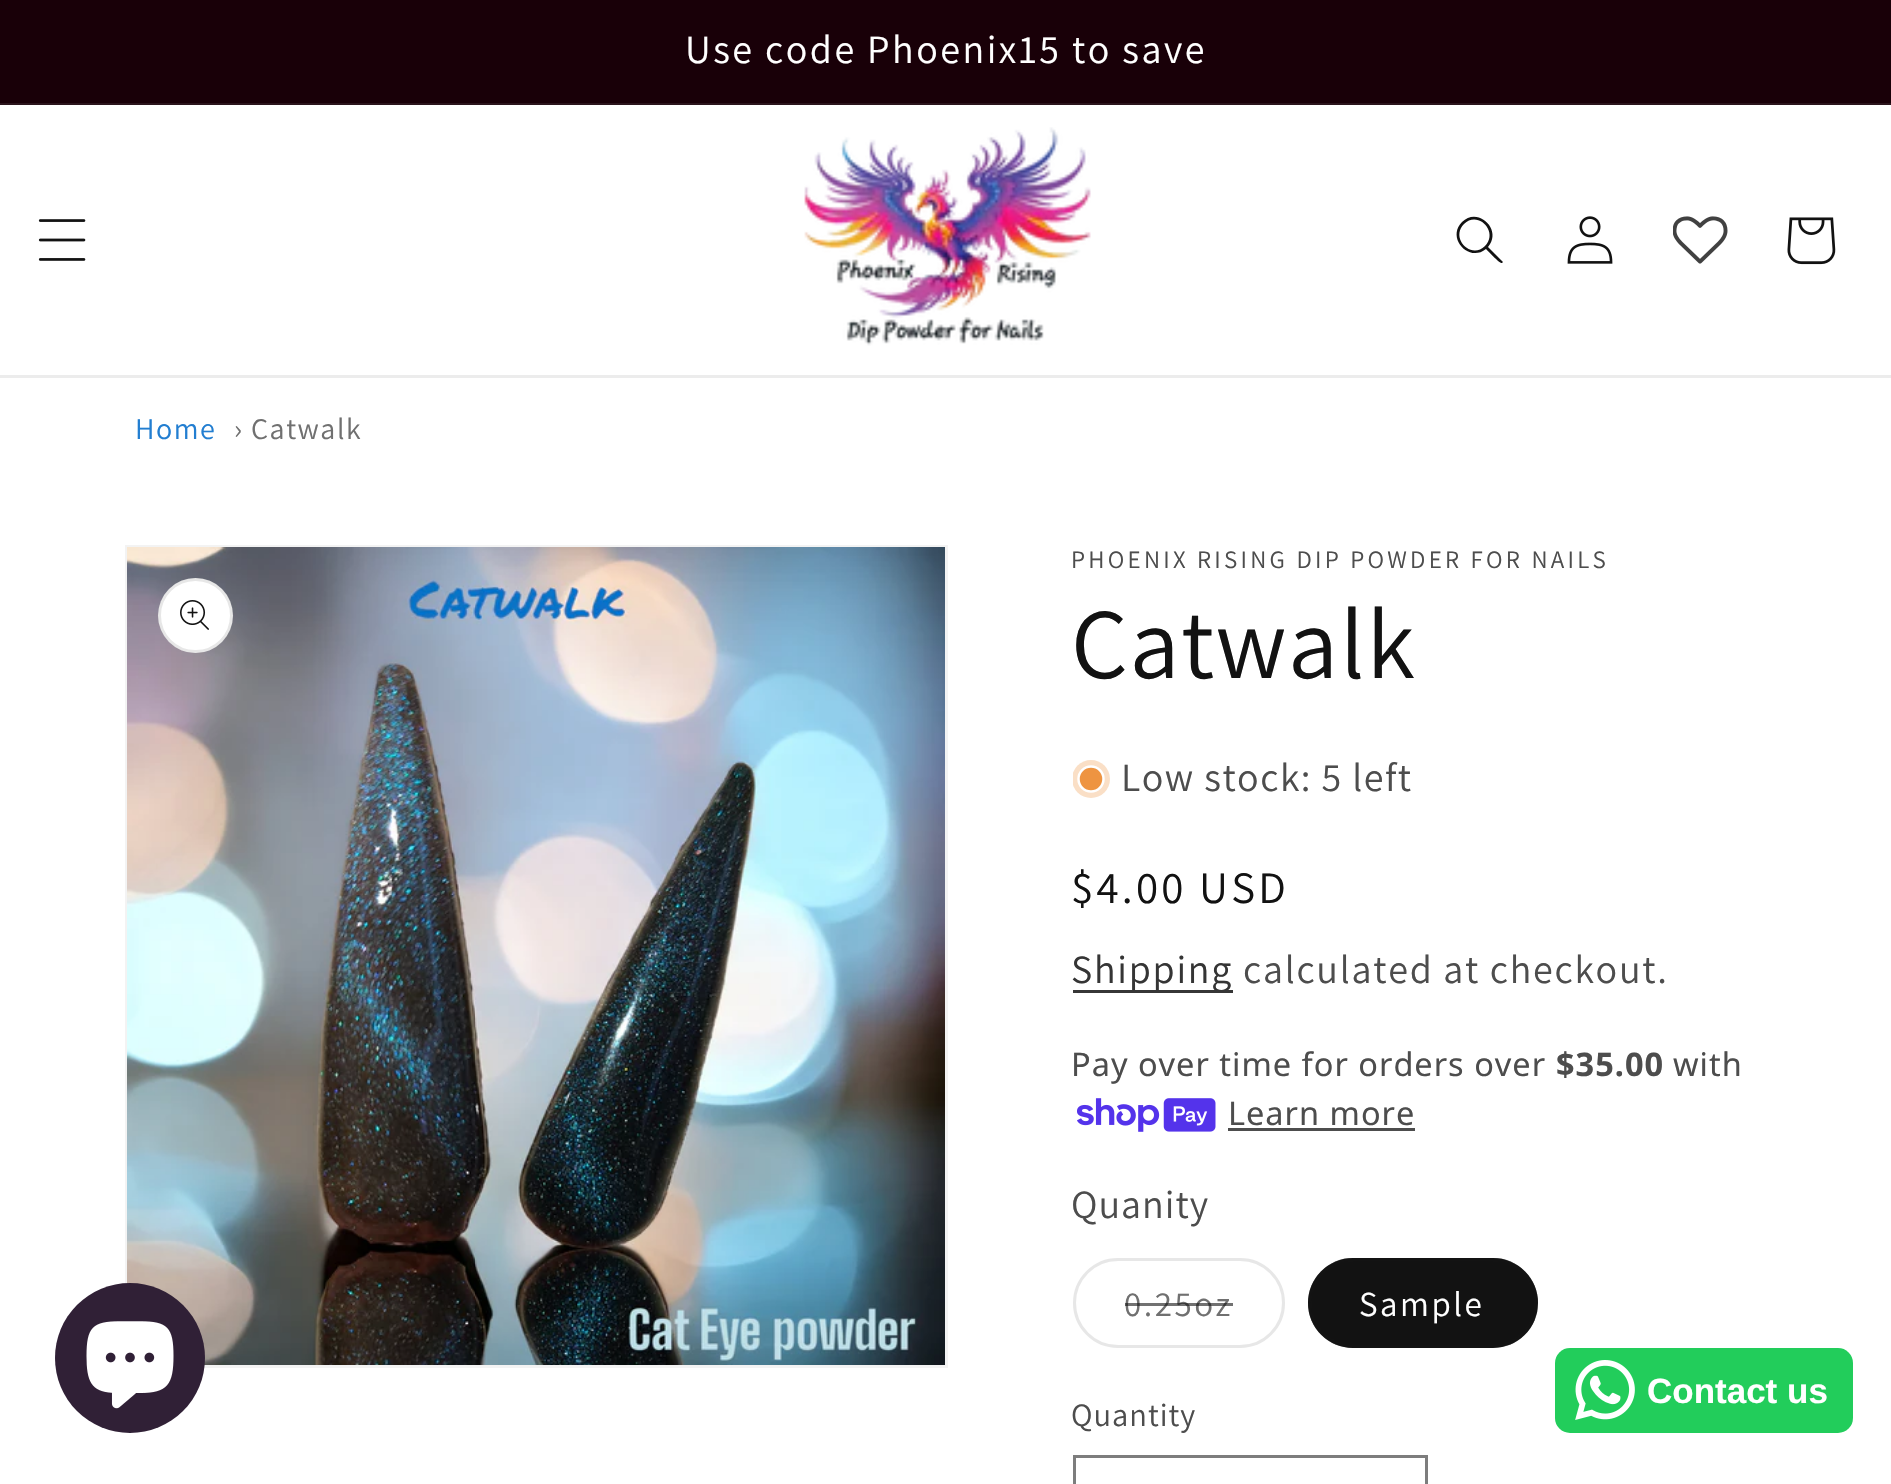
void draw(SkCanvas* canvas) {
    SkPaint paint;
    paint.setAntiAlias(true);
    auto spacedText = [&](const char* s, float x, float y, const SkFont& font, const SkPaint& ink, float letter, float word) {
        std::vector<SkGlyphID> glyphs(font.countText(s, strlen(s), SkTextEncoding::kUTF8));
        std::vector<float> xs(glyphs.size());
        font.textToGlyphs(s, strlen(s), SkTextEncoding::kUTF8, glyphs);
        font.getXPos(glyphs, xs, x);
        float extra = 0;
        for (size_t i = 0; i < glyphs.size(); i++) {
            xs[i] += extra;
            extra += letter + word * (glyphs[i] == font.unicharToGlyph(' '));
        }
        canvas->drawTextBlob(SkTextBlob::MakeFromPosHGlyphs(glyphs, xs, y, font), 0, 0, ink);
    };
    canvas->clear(0xFFFFFFFF);
    paint.setColor(0xFF190008);
    canvas->drawRect(SkRect::MakeXYWH(0, 0, 1891, 103), paint);
    paint.setColor(0xFF2B141C);
    canvas->drawRect(SkRect::MakeXYWH(0, 103, 1891, 2), paint);
    SkFont font1(fontMgr->matchFamilyStyle("Assistant", SkFontStyle::Normal()), 40);
    font1.setSubpixel(true);
    paint.setColor(0xFFFFFFFF);
    spacedText("Use code Phoenix15 to save", 685, 63, font1, paint, 2.5f, 0);
    paint.setColor(0xFFECECEC);
    canvas->drawRect(SkRect::MakeXYWH(0, 375, 1891, 3), paint);
    canvas->drawImageRect(SkImages::DeferredFromEncodedData(SkData::MakeFromFileName("img1.png")), SkRect::MakeXYWH(38, 219, 48, 42), SkSamplingOptions());
    canvas->drawImageRect(SkImages::DeferredFromEncodedData(SkData::MakeFromFileName("img2.png")), SkRect::MakeXYWH(804, 127, 287, 219), SkSamplingOptions());
    paint.setColor(0xFF121212);
    canvas->drawPath(SkPathBuilder(SkPathFillType::kEvenOdd).moveTo(1485, 246).cubicTo(1471, 260, 1450, 238, 1464, 224).cubicTo(1478, 210, 1499, 232, 1485, 246).close().moveTo(1486, 249).cubicTo(1469, 263, 1446, 238, 1462, 222).cubicTo(1478, 206, 1503, 230, 1488, 247).lineTo(1503, 262).lineTo(1502, 263).cubicTo(1500, 264, 1488, 251, 1486, 249).close().detach(), paint);
    canvas->drawImageRect(SkImages::DeferredFromEncodedData(SkData::MakeFromFileName("img3.png")), SkRect::MakeXYWH(1567, 216, 46, 48), SkSamplingOptions());
    canvas->drawImageRect(SkImages::DeferredFromEncodedData(SkData::MakeFromFileName("img4.png")), SkRect::MakeXYWH(1673, 216, 55, 48), SkSamplingOptions());
    canvas->drawImageRect(SkImages::DeferredFromEncodedData(SkData::MakeFromFileName("img5.png")), SkRect::MakeXYWH(1787, 217, 49, 48), SkSamplingOptions());
    SkFont font2(fontMgr->matchFamilyStyle("Assistant", SkFontStyle::Normal()), 30);
    font2.setSubpixel(true);
    paint.setColor(0xFF227ED1);
    spacedText("Home", 135, 439, font2, paint, 1.5f, 0);
    paint.setColor(0xFF707070);
    spacedText("› Catwalk", 234, 439, font2, paint, 1.5f, 0);
    paint.setStyle(SkPaint::kStroke_Style);
    paint.setStrokeWidth(3);
    paint.setColor(0xFFF3F3F3);
    canvas->drawRect(SkRect::MakeXYWH(126.5f, 546.5f, 820, 820), paint);
    canvas->drawImageRect(SkImages::DeferredFromEncodedData(SkData::MakeFromFileName("img7.png")), SkRect::MakeXYWH(127, 547, 818, 818), SkSamplingOptions());
    paint.setStyle(SkPaint::kFill_Style);
    paint.setColor(0xFF302036);
    canvas->drawCircle(130, 1358, 75, paint);
    canvas->drawImageRect(SkImages::DeferredFromEncodedData(SkData::MakeFromFileName("img6.png")), SkRect::MakeXYWH(86, 1321, 88, 88), SkSamplingOptions());
    paint.setColor(0xFFFFFFFF);
    canvas->drawCircle(195.5f, 615.5f, 37.5f, paint);
    paint.setStyle(SkPaint::kStroke_Style);
    paint.setColor(0x1A121212);
    canvas->drawCircle(195.5f, 615.5f, 36, paint);
    canvas->drawImageRect(SkImages::DeferredFromEncodedData(SkData::MakeFromFileName("img8.png")), SkRect::MakeXYWH(180, 600, 29, 30), SkSamplingOptions());
    SkFont font3(fontMgr->matchFamilyStyle("Assistant", SkFontStyle::Normal()), 25);
    font3.setSubpixel(true);
    paint.setStyle(SkPaint::kFill_Style);
    paint.setColor(0xFF4D4D4D);
    spacedText("PHOENIX RISING DIP POWDER FOR NAILS", 1071, 568, font3, paint, 3.25f, 0);
    SkFont font4(fontMgr->matchFamilyStyle("Assistant", SkFontStyle::Normal()), 100);
    font4.setSubpixel(true);
    paint.setColor(0xFF121212);
    spacedText("Catwalk", 1071, 678, font4, paint, 1.5f, 0);
    canvas->save();
    canvas->clipRect(SkRect::MakeXYWH(1073, 760, 37, 38));
    paint.setColor(0xFFFADFC6);
    canvas->drawCircle(1091, 779, 19, paint);
    canvas->restore();
    paint.setColor(0xFFEE9441);
    canvas->drawCircle(1091, 779, 12.5f, paint);
    paint.setStyle(SkPaint::kStroke_Style);
    paint.setStrokeWidth(2.5f);
    paint.setColor(0xFFFFFFFF);
    canvas->drawCircle(1091, 779, 12.5f, paint);
    paint.setStyle(SkPaint::kFill_Style);
    paint.setColor(0xFF4D4D4D);
    spacedText("Low stock: 5 left", 1121, 791, font1, paint, 1.5f, 0);
    SkFont font5(fontMgr->matchFamilyStyle("Assistant", SkFontStyle::Normal()), 45);
    font5.setSubpixel(true);
    paint.setColor(0xFF121212);
    spacedText("$4.00 USD", 1071, 903, font5, paint, 3.25f, 0);
    paint.setColor(0xFF363636);
    canvas->drawRect(SkRect::MakeXYWH(1073, 990, 160, 3), paint);
    paint.setColor(0xFF353535);
    spacedText("Shipping", 1071, 983, font1, paint, 1.75f, 0);
    paint.setColor(0xFF4D4D4D);
    spacedText("calculated at checkout.", 1243, 983, font1, paint, 1.75f, 0);
    SkFont font6(fontMgr->matchFamilyStyle("Noto Sans", SkFontStyle::Normal()), 32.5f);
    font6.setSubpixel(true);
    spacedText("Pay over time for orders over", 1071, 1076, font6, paint, 1, 0);
    SkFont font7(fontMgr->matchFamilyStyle("Noto Sans", SkFontStyle::Bold()), 32.5f);
    font7.setSubpixel(true);
    spacedText("$35.00", 1556, 1076, font7, paint, 1, 0);
    spacedText("with", 1673, 1076, font6, paint, 1, 0);
    canvas->drawImageRect(SkImages::DeferredFromEncodedData(SkData::MakeFromFileName("img9.png")), SkRect::MakeXYWH(1077, 1098, 139, 34), SkSamplingOptions());
    spacedText("Learn more", 1228, 1125, font6, paint, 1, 0);
    canvas->drawRect(SkRect::MakeXYWH(1228, 1128, 187, 3), paint);
    spacedText("Quanity", 1071, 1218, font1, paint, 1, 0);
    paint.setStyle(SkPaint::kStroke_Style);
    paint.setStrokeWidth(3);
    paint.setColor(0xFFE7E7E7);
    canvas->drawRoundRect(SkRect::MakeXYWH(1074.5f, 1259.5f, 209, 87), 43.5f, 43.5f, paint);
    SkFont font8(fontMgr->matchFamilyStyle("Assistant", SkFontStyle::Normal()), 35);
    font8.setSubpixel(true);
    paint.setStyle(SkPaint::kFill_Style);
    paint.setColor(0xFF707070);
    spacedText("0.25oz", 1124, 1316, font8, paint, 2.5f, 0);
    paint.setColor(0x99121212);
    canvas->drawRect(SkRect::MakeXYWH(1125, 1303, 108, 3), paint);
    paint.setColor(0xFF121212);
    canvas->drawRoundRect(SkRect::MakeXYWH(1308, 1258, 230, 90), 45, 45, paint);
    paint.setStyle(SkPaint::kStroke_Style);
    paint.setColor(0x8C121212);
    canvas->drawRoundRect(SkRect::MakeXYWH(1309.5f, 1259.5f, 227, 87), 43.5f, 43.5f, paint);
    paint.setStyle(SkPaint::kFill_Style);
    paint.setColor(0xFFFFFFFF);
    spacedText("Sample", 1359, 1316, font8, paint, 2.5f, 0);
    SkFont font9(fontMgr->matchFamilyStyle("Assistant", SkFontStyle::Normal()), 32.5f);
    font9.setSubpixel(true);
    paint.setColor(0xFF4D4D4D);
    spacedText("Quantity", 1071, 1426, font9, paint, 1, 0);
    paint.setStyle(SkPaint::kStroke_Style);
    paint.setColor(0xFF7D7D7D);
    canvas->drawRect(SkRect::MakeXYWH(1074.5f, 1456.5f, 352, 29), paint);
    paint.setStyle(SkPaint::kFill_Style);
    paint.setColor(0xFF22CD5B);
    canvas->drawRoundRect(SkRect::MakeXYWH(1555, 1348, 298, 85), 15, 15, paint);
    canvas->drawImageRect(SkImages::DeferredFromEncodedData(SkData::MakeFromFileName("img10.png")), SkRect::MakeXYWH(1575, 1360, 60, 60), SkSamplingOptions());
    SkFont font10(fontMgr->matchFamilyStyle("Liberation Sans", SkFontStyle::Bold()), 35);
    font10.setSubpixel(true);
    paint.setColor(0xFFFFFFFF);
    canvas->drawString("Contact us", 1647, 1403, font10, paint);
}
